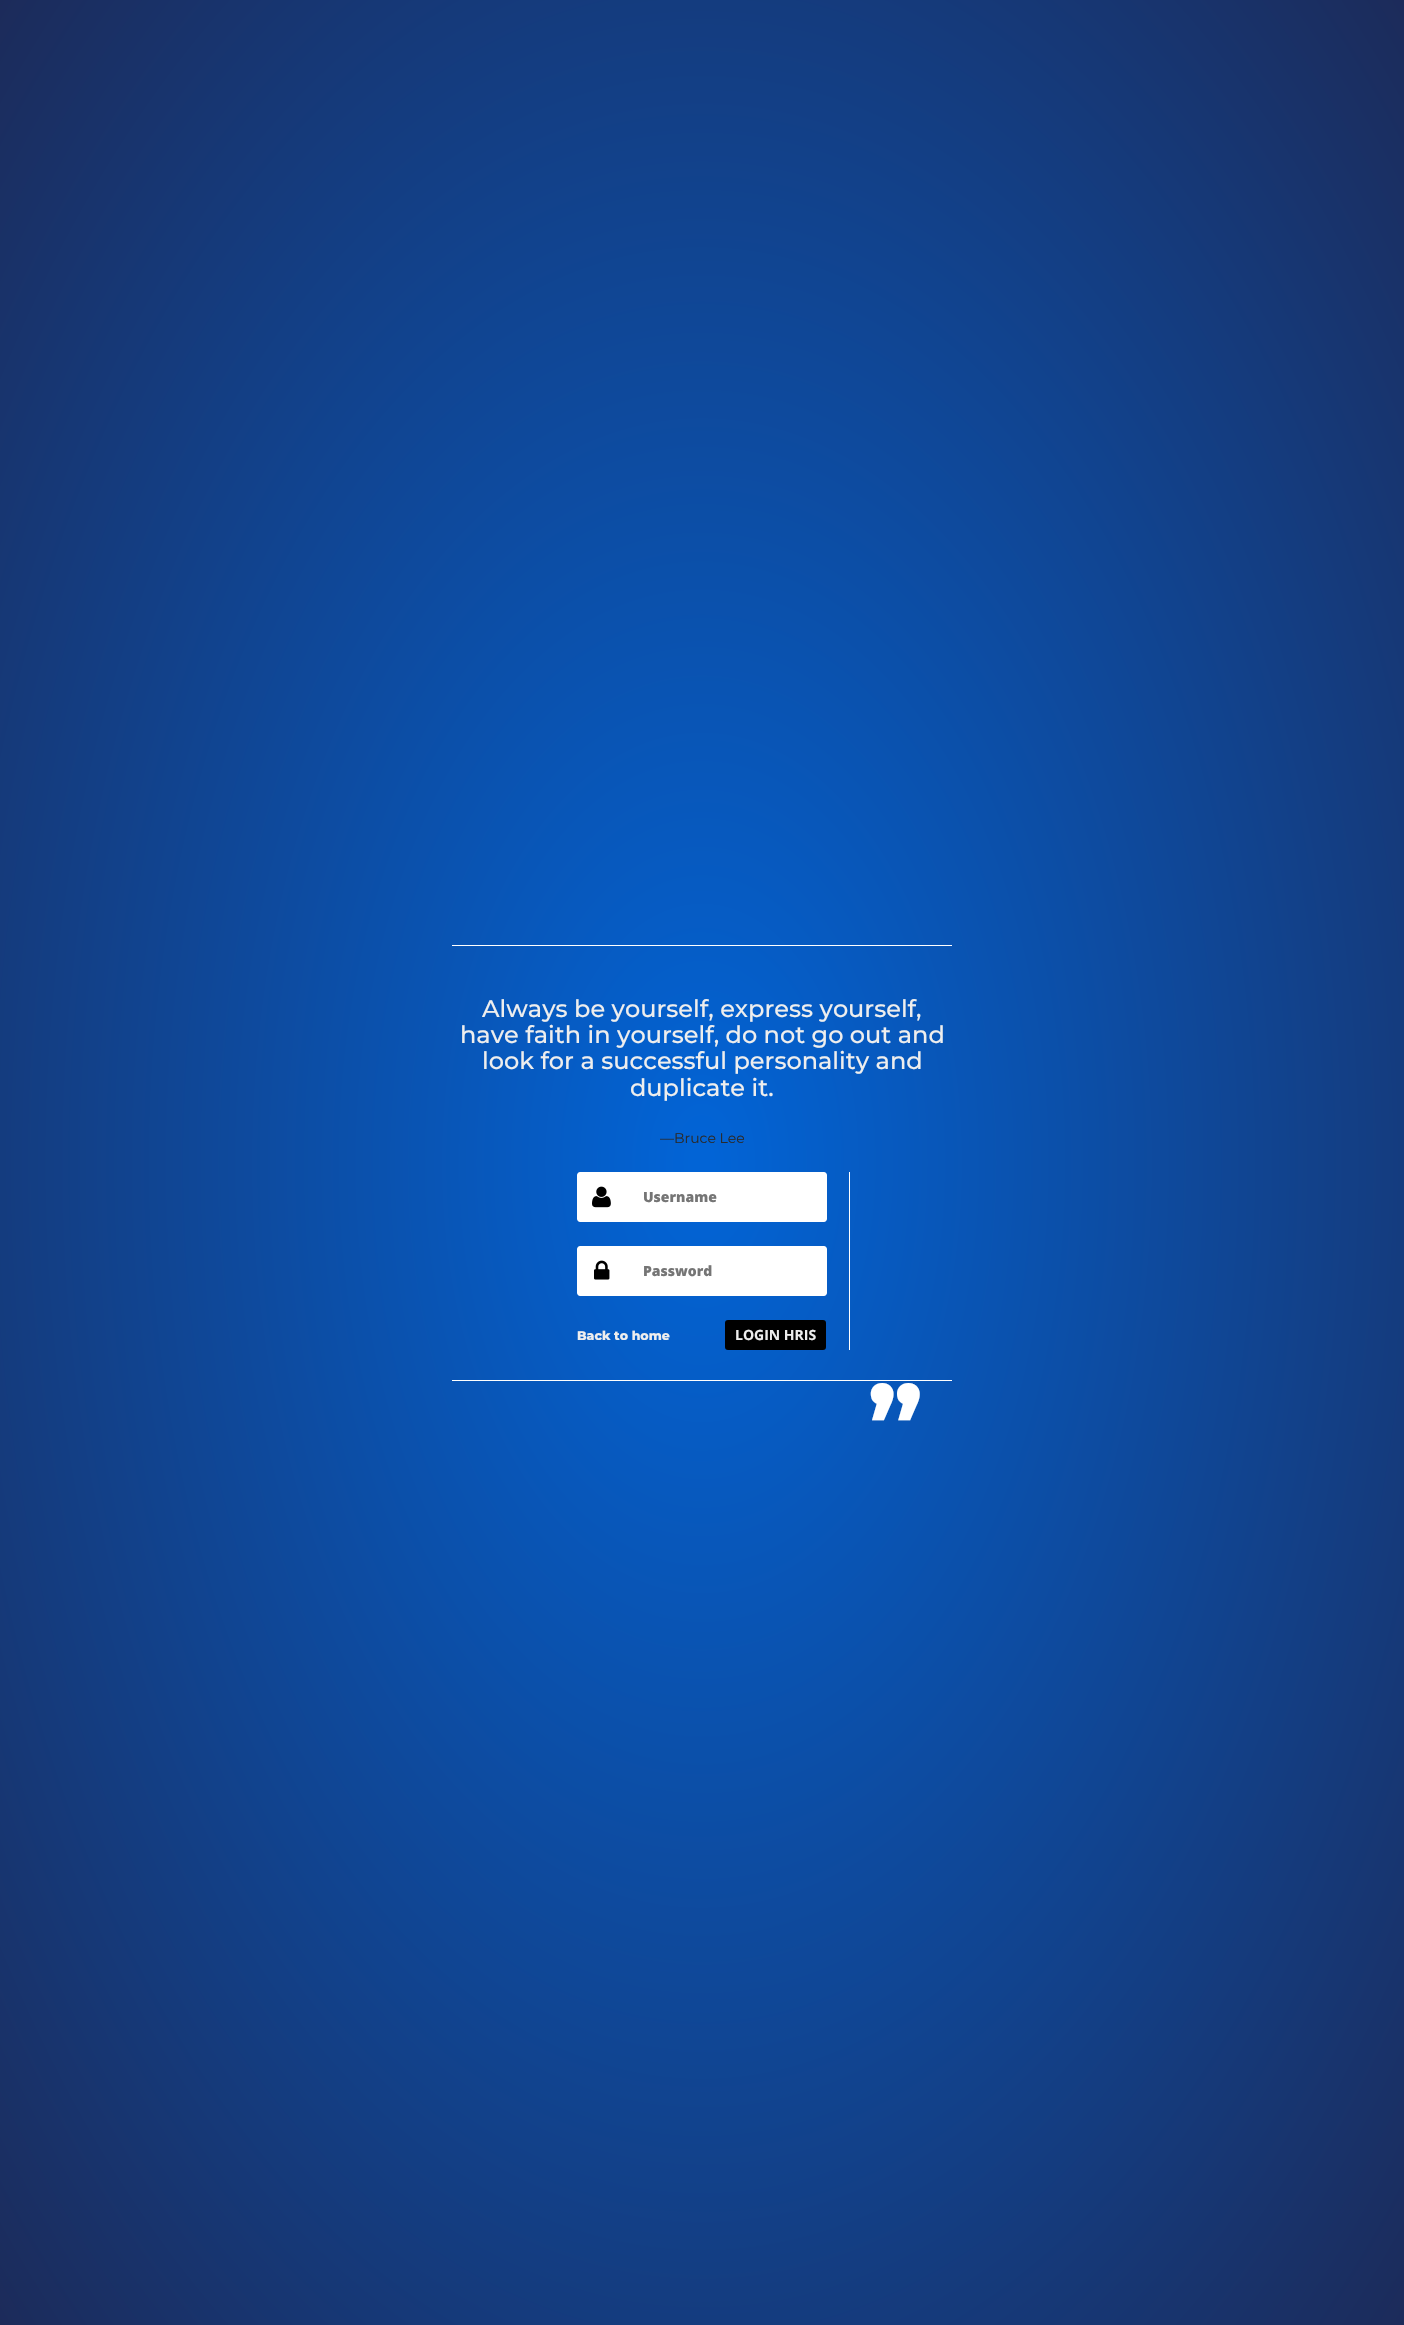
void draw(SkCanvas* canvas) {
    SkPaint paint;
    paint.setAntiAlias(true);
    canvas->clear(0xFFFFFFFF);
    {
        const SkColor colors[] = {0xFF0264D6, 0xFF1C2B5A};
        const float stops[] = {0.01f, 1};
        SkMatrix m = SkMatrix::Translate(702, 1163).preScale(993, 1644);
        paint.setShader(SkGradientShader::MakeRadial({0, 0}, 1, colors, stops, 2, SkTileMode::kClamp, 0, &m));
        paint.setAlpha(255);
    }
    canvas->drawRect(SkRect::MakeXYWH(0, 0, 1404, 2325), paint);
    paint.setShader(nullptr);
    paint.setColor(0xFFFFFFFF);
    canvas->drawRect(SkRect::MakeXYWH(452, 945, 500, 1), paint);
    canvas->drawRect(SkRect::MakeXYWH(452, 1380, 500, 1), paint);
    SkFont font1(fontMgr->matchFamilyStyle("Montserrat", SkFontStyle(500, SkFontStyle::kNormal_Width, SkFontStyle::kUpright_Slant)), 24);
    font1.setSubpixel(true);
    paint.setColor(0xFFEEEEEE);
    canvas->drawString("Always be yourself, express yourself,", 482, 1017, font1, paint);
    canvas->drawString("have faith in yourself, do not go out and", 460, 1043, font1, paint);
    canvas->drawString("look for a successful personality and", 482, 1069, font1, paint);
    canvas->drawString("duplicate it.", 630, 1096, font1, paint);
    SkFont font2(fontMgr->matchFamilyStyle("Montserrat", SkFontStyle::Normal()), 14);
    font2.setSubpixel(true);
    paint.setColor(0xFF292A2B);
    canvas->drawString("—Bruce Lee", 660, 1143, font2, paint);
    paint.setColor(0xFFFFFFFF);
    canvas->drawRect(SkRect::MakeXYWH(849, 1172, 1, 178), paint);
    canvas->drawPath(SkPathBuilder().moveTo(580, 1172).lineTo(627, 1172).lineTo(627, 1222).lineTo(580, 1222).cubicTo(578.5f, 1222, 577, 1220.5f, 577, 1219).lineTo(577, 1175).cubicTo(577, 1173.5f, 578.5f, 1172, 580, 1172).close().detach(), paint);
    canvas->drawImageRect(SkImages::DeferredFromEncodedData(SkData::MakeFromFileName("img1.png")), SkRect::MakeXYWH(592, 1186, 19, 22), SkSamplingOptions());
    canvas->drawPath(SkPathBuilder().moveTo(627, 1172).lineTo(824, 1172).cubicTo(825.5f, 1172, 827, 1173.5f, 827, 1175).lineTo(827, 1219).cubicTo(827, 1220.5f, 825.5f, 1222, 824, 1222).lineTo(627, 1222).close().detach(), paint);
    SkFont font3(fontMgr->matchFamilyStyle("Open Sans", SkFontStyle(800, SkFontStyle::kNormal_Width, SkFontStyle::kUpright_Slant)), 14);
    font3.setSubpixel(true);
    paint.setColor(0xFF757575);
    canvas->drawString("Username", 643, 1202, font3, paint);
    paint.setColor(0xFFFFFFFF);
    canvas->drawPath(SkPathBuilder().moveTo(580, 1246).lineTo(627, 1246).lineTo(627, 1296).lineTo(580, 1296).cubicTo(578.5f, 1296, 577, 1294.5f, 577, 1293).lineTo(577, 1249).cubicTo(577, 1247.5f, 578.5f, 1246, 580, 1246).close().detach(), paint);
    canvas->drawImageRect(SkImages::DeferredFromEncodedData(SkData::MakeFromFileName("img2.png")), SkRect::MakeXYWH(594, 1260, 16, 20), SkSamplingOptions());
    canvas->drawPath(SkPathBuilder().moveTo(627, 1246).lineTo(824, 1246).cubicTo(825.5f, 1246, 827, 1247.5f, 827, 1249).lineTo(827, 1293).cubicTo(827, 1294.5f, 825.5f, 1296, 824, 1296).lineTo(627, 1296).close().detach(), paint);
    paint.setColor(0xFF757575);
    canvas->drawString("Password", 643, 1276, font3, paint);
    SkFont font4(fontMgr->matchFamilyStyle("Montserrat", SkFontStyle(800, SkFontStyle::kNormal_Width, SkFontStyle::kUpright_Slant)), 12.5f);
    font4.setSubpixel(true);
    paint.setColor(0xFFEEEEEE);
    canvas->drawString("Back to home", 577, 1340, font4, paint);
    paint.setColor(0xFF000000);
    canvas->drawRoundRect(SkRect::MakeXYWH(725, 1320, 101, 30), 3, 3, paint);
    SkFont font5(fontMgr->matchFamilyStyle("Open Sans", SkFontStyle::Bold()), 14);
    font5.setSubpixel(true);
    paint.setColor(0xFFEEEEEE);
    canvas->drawString("LOGIN HRIS", 735, 1340, font5, paint);
    SkFont font6(fontMgr->matchFamilyStyle("Montserrat", SkFontStyle(800, SkFontStyle::kNormal_Width, SkFontStyle::kUpright_Slant)), 100);
    font6.setSubpixel(true);
    paint.setColor(0xFFFFFFFF);
    canvas->drawString("”", 868, 1458, font6, paint);
}
